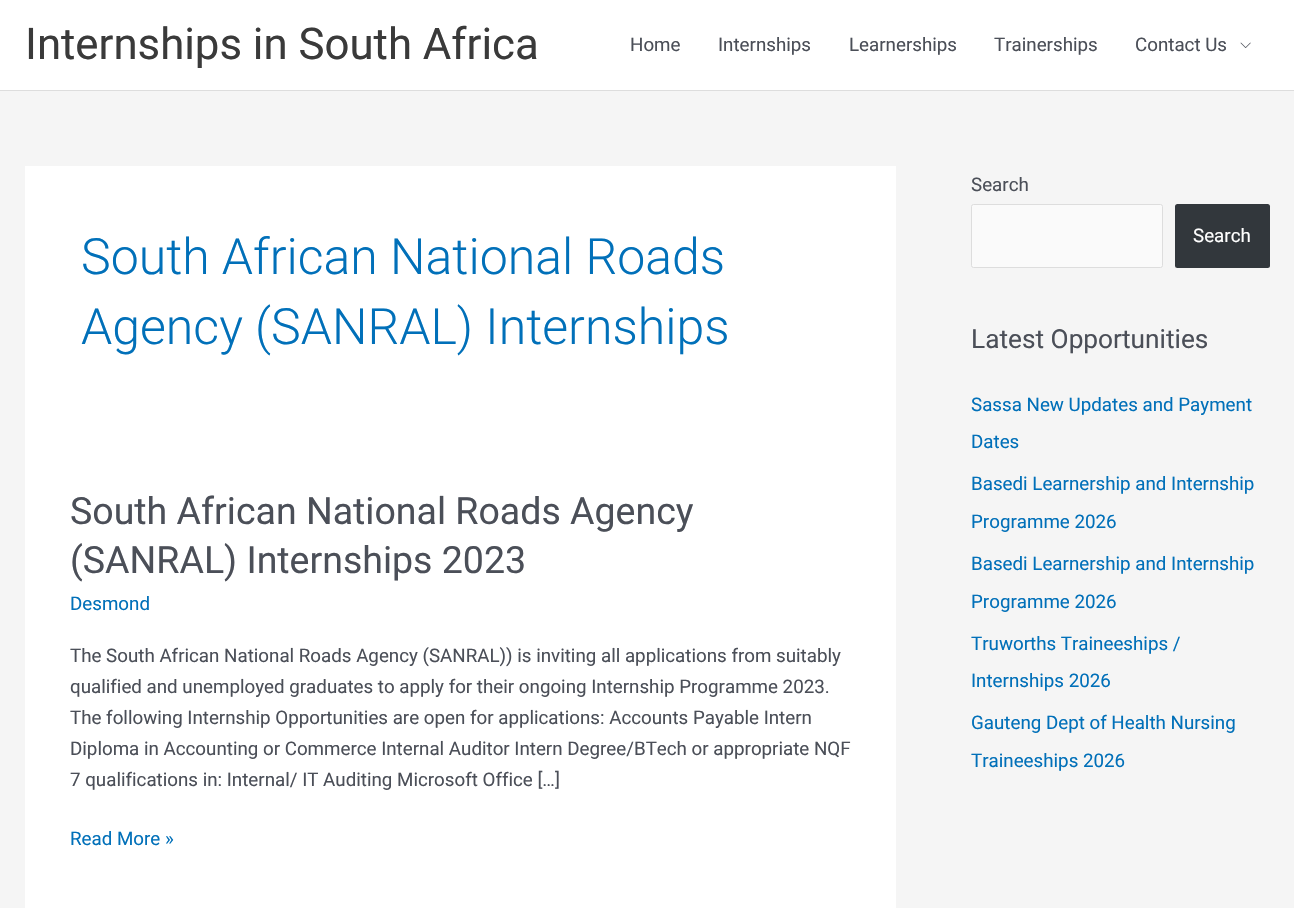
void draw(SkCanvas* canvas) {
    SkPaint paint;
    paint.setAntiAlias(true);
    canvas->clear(0xFFF5F5F5);
    paint.setColor(0xFFFFFFFF);
    canvas->drawRect(SkRect::MakeXYWH(0, 0, 1294, 90), paint);
    paint.setColor(0xFFDDDDDD);
    canvas->drawRect(SkRect::MakeXYWH(0, 90, 1294, 1), paint);
    SkFont font1(fontMgr->matchFamilyStyle("Roboto", SkFontStyle::Normal()), 43.75f);
    font1.setSubpixel(true);
    paint.setColor(0xFF3A3A3A);
    canvas->drawString("Internships in South Africa", 25, 59, font1, paint);
    SkFont font2(fontMgr->matchFamilyStyle("Roboto", SkFontStyle::Normal()), 18.75f);
    font2.setSubpixel(true);
    paint.setColor(0xFF4B4F58);
    canvas->drawString("Home", 630, 51, font2, paint);
    canvas->drawString("Internships", 718, 51, font2, paint);
    canvas->drawString("Learnerships", 849, 51, font2, paint);
    canvas->drawString("Trainerships", 994, 51, font2, paint);
    canvas->drawString("Contact Us", 1135, 51, font2, paint);
    canvas->drawImageRect(SkImages::DeferredFromEncodedData(SkData::MakeFromFileName("img1.png")), SkRect::MakeXYWH(1240, 42, 11, 6), SkSamplingOptions());
    paint.setColor(0xFFFFFFFF);
    canvas->drawRect(SkRect::MakeXYWH(25, 166, 871, 742), paint);
    SkFont font3(fontMgr->matchFamilyStyle("Roboto", SkFontStyle(300, SkFontStyle::kNormal_Width, SkFontStyle::kUpright_Slant)), 50);
    font3.setSubpixel(true);
    paint.setColor(0xFF0170B9);
    canvas->drawString("South African National Roads", 81, 274, font3, paint);
    canvas->drawString("Agency (SANRAL) Internships", 81, 344, font3, paint);
    SkFont font4(fontMgr->matchFamilyStyle("Roboto", SkFontStyle::Normal()), 37.5f);
    font4.setSubpixel(true);
    paint.setColor(0xFF4B4F58);
    canvas->drawString("South African National Roads Agency", 70, 524, font4, paint);
    canvas->drawString("(SANRAL) Internships 2023", 70, 573, font4, paint);
    paint.setColor(0xFF0170B9);
    canvas->drawString("Desmond", 70, 610, font2, paint);
    paint.setColor(0xFF4B4F58);
    canvas->drawString("The South African National Roads Agency (SANRAL)) is inviting all applications from suitably", 70, 662, font2, paint);
    canvas->drawString("qualified and unemployed graduates to apply for their ongoing Internship Programme 2023.", 70, 693, font2, paint);
    canvas->drawString("The following Internship Opportunities are open for applications: Accounts Payable Intern", 70, 724, font2, paint);
    canvas->drawString("Diploma in Accounting or Commerce Internal Auditor Intern Degree/BTech or appropriate NQF", 70, 755, font2, paint);
    canvas->drawString("7 qualifications in: Internal/ IT Auditing Microsoft Office […]", 70, 786, font2, paint);
    paint.setColor(0xFF0170B9);
    canvas->drawString("Read More »", 70, 845, font2, paint);
    paint.setColor(0xFF4B4F58);
    canvas->drawString("Search", 971, 191, font2, paint);
    paint.setColor(0xFFFAFAFA);
    canvas->drawRoundRect(SkRect::MakeXYWH(971.5f, 204.5f, 191, 63), 2, 2, paint);
    paint.setStyle(SkPaint::kStroke_Style);
    paint.setStrokeWidth(1);
    paint.setColor(0xFFDDDDDD);
    canvas->drawRoundRect(SkRect::MakeXYWH(971.5f, 204.5f, 191, 63), 2, 2, paint);
    paint.setStyle(SkPaint::kFill_Style);
    paint.setColor(0xFF32373C);
    canvas->drawRoundRect(SkRect::MakeXYWH(1175, 204, 95, 64), 2.5f, 2.5f, paint);
    paint.setColor(0xFFFFFFFF);
    canvas->drawString("Search", 1193, 242, font2, paint);
    SkFont font5(fontMgr->matchFamilyStyle("Roboto", SkFontStyle::Normal()), 26.25f);
    font5.setSubpixel(true);
    paint.setColor(0xFF4B4F58);
    canvas->drawString("Latest Opportunities", 971, 348, font5, paint);
    paint.setColor(0xFF0170B9);
    canvas->drawString("Sassa New Updates and Payment", 971, 411, font2, paint);
    canvas->drawString("Dates", 971, 448, font2, paint);
    canvas->drawString("Basedi Learnership and Internship", 971, 490, font2, paint);
    canvas->drawString("Programme 2026", 971, 528, font2, paint);
    canvas->drawString("Basedi Learnership and Internship", 971, 570, font2, paint);
    canvas->drawString("Programme 2026", 971, 608, font2, paint);
    canvas->drawString("Truworths Traineeships /", 971, 650, font2, paint);
    canvas->drawString("Internships 2026", 971, 687, font2, paint);
    canvas->drawString("Gauteng Dept of Health Nursing", 971, 729, font2, paint);
    canvas->drawString("Traineeships 2026", 971, 767, font2, paint);
}
